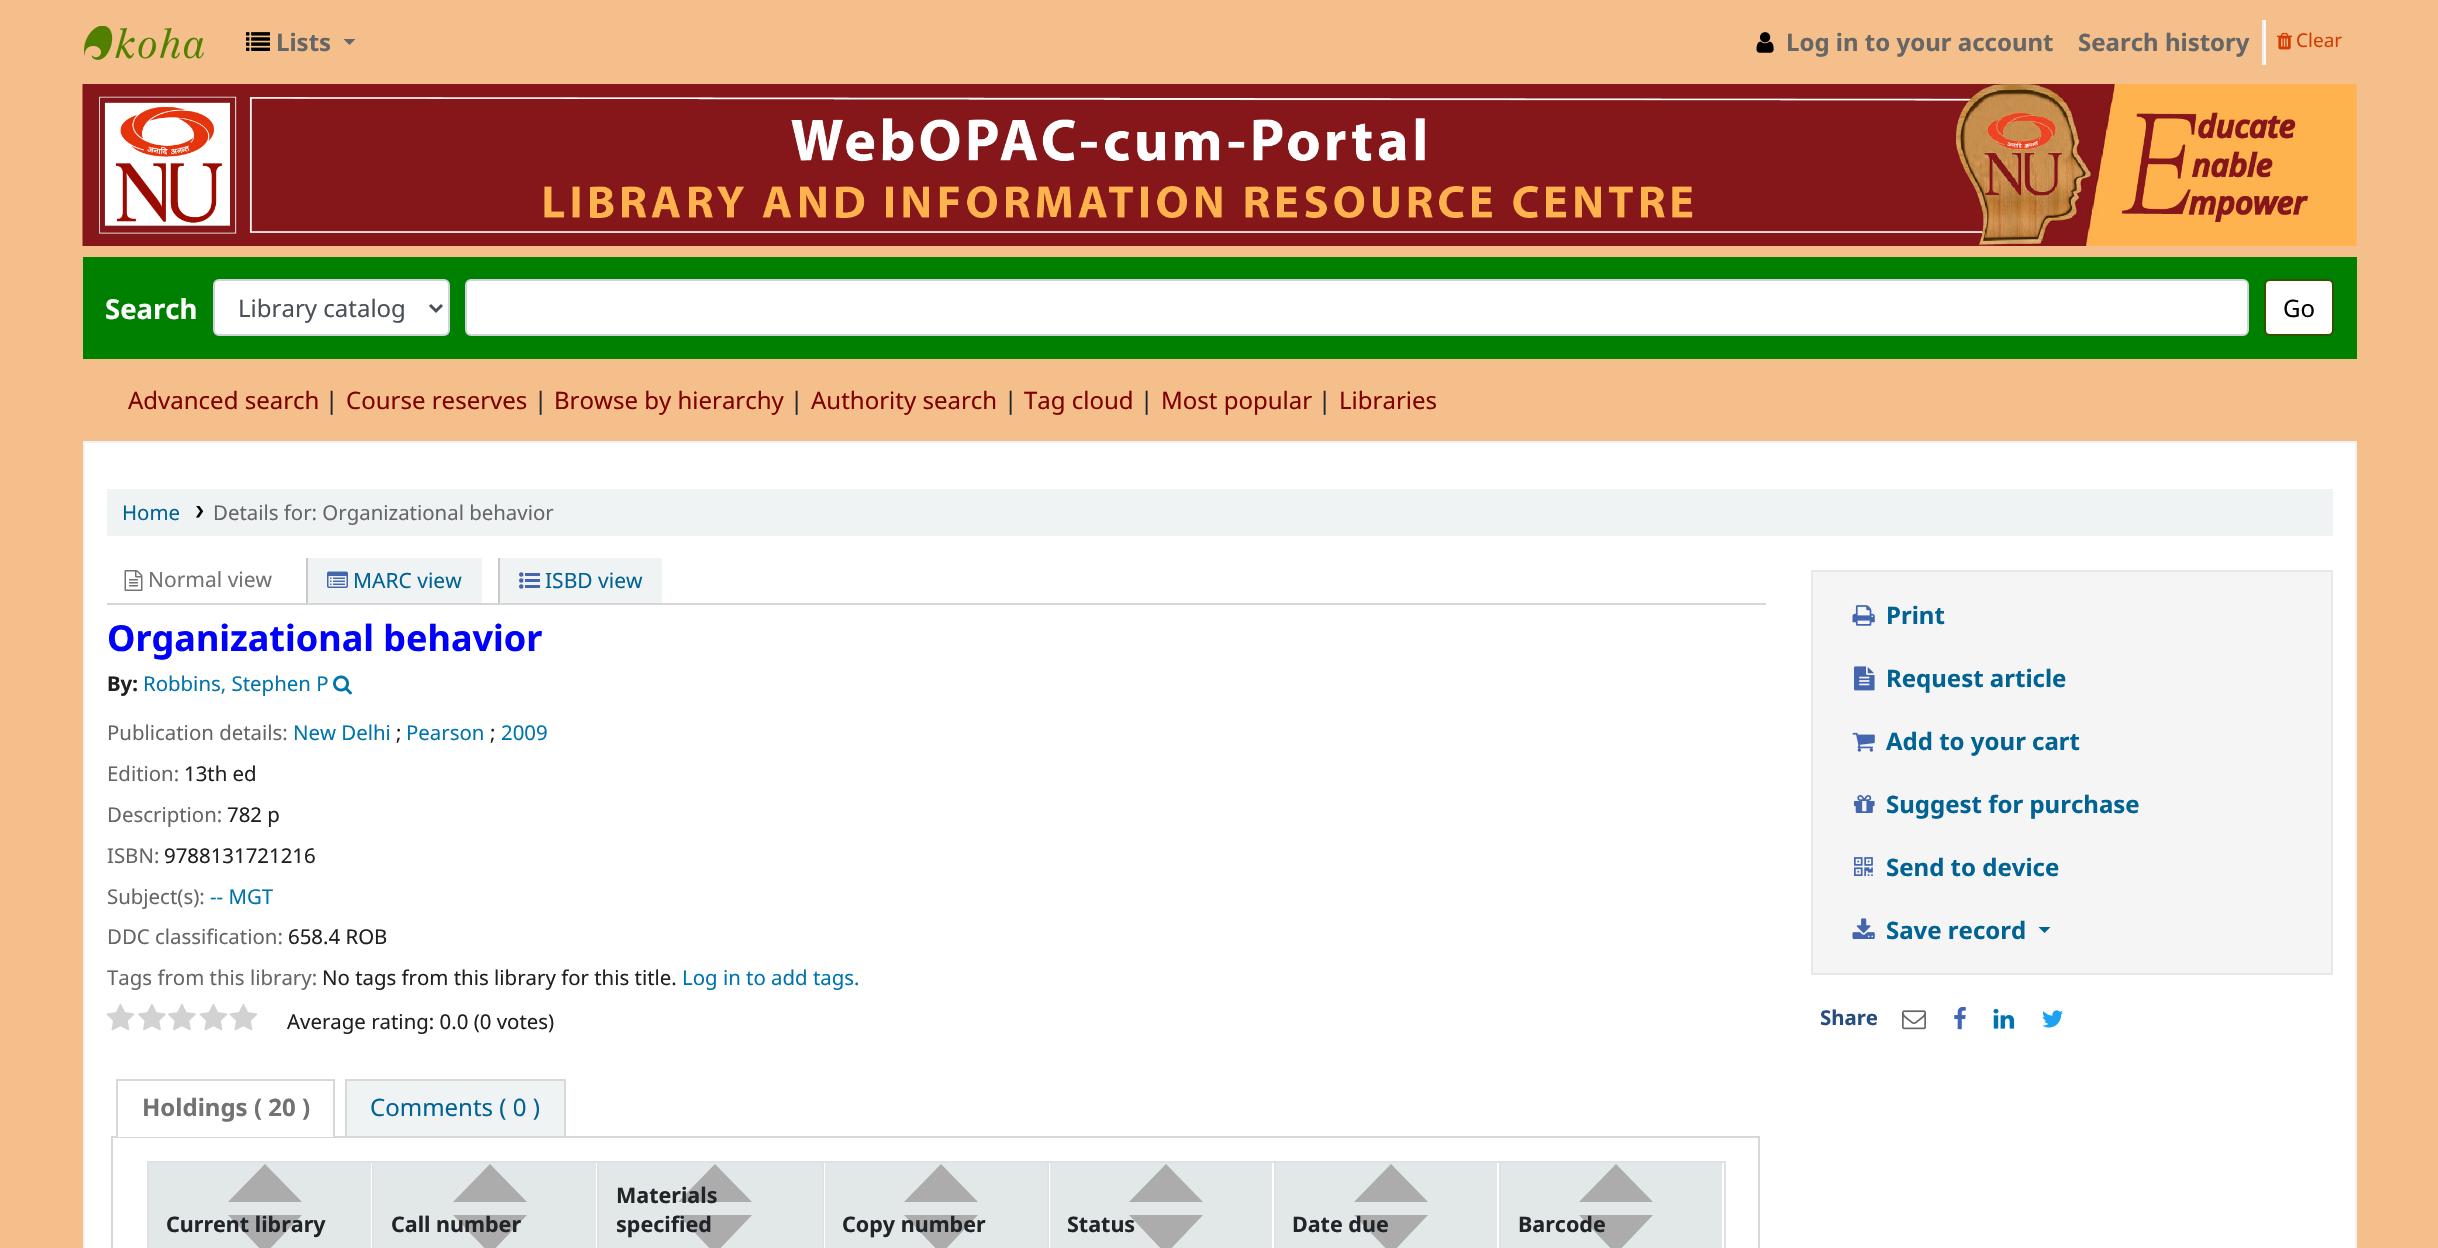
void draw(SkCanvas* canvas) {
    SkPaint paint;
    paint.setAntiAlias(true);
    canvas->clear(0xFFF4BF8B);
    canvas->drawImageRect(SkImages::DeferredFromEncodedData(SkData::MakeFromFileName("img1.png")), SkRect::MakeXYWH(84, 26, 120, 34), SkSamplingOptions());
    canvas->drawImageRect(SkImages::DeferredFromEncodedData(SkData::MakeFromFileName("img2.png")), SkRect::MakeXYWH(246, 32, 24, 19), SkSamplingOptions());
    SkFont font1(fontMgr->matchFamilyStyle("Noto Sans", SkFontStyle::Bold()), 24);
    font1.setSubpixel(true);
    paint.setColor(0xFF666666);
    canvas->drawString("Lists", 276, 51, font1, paint);
    canvas->drawPath(SkPathBuilder().moveTo(343.5f, 39).lineTo(355.5f, 39).lineTo(349.5f, 45).close().detach(), paint);
    canvas->drawImageRect(SkImages::DeferredFromEncodedData(SkData::MakeFromFileName("img3.png")), SkRect::MakeXYWH(1756, 32, 18, 21), SkSamplingOptions());
    canvas->drawString("Log in to your account", 1786, 51, font1, paint);
    canvas->drawString("Search history", 2078, 51, font1, paint);
    paint.setColor(0xFFFCF9FC);
    canvas->drawRect(SkRect::MakeXYWH(2264, 20, 2, 45), paint);
    paint.setColor(0xFFEEEEEE);
    canvas->drawRect(SkRect::MakeXYWH(2262, 63, 3, 2), paint);
    canvas->drawRect(SkRect::MakeXYWH(2262, 20, 2, 45), paint);
    canvas->drawImageRect(SkImages::DeferredFromEncodedData(SkData::MakeFromFileName("img4.png")), SkRect::MakeXYWH(2277, 32, 16, 18), SkSamplingOptions());
    SkFont font2(fontMgr->matchFamilyStyle("Noto Sans", SkFontStyle::Normal()), 19);
    font2.setSubpixel(true);
    paint.setColor(0xFFD43C00);
    canvas->drawString("Clear", 2296, 47, font2, paint);
    canvas->drawImageRect(SkImages::DeferredFromEncodedData(SkData::MakeFromFileName("img5.png")), SkRect::MakeXYWH(82, 84, 2275, 162), SkSamplingOptions());
    paint.setColor(0xFF008000);
    canvas->drawRect(SkRect::MakeXYWH(83, 257, 2274, 102), paint);
    SkFont font3(fontMgr->matchFamilyStyle("Noto Sans", SkFontStyle::Bold()), 27.5f);
    font3.setSubpixel(true);
    paint.setColor(0xFFFFFFFF);
    canvas->drawString("Search", 105, 319, font3, paint);
    canvas->drawRoundRect(SkRect::MakeXYWH(214, 280, 235, 55), 5, 5, paint);
    paint.setStyle(SkPaint::kStroke_Style);
    paint.setStrokeWidth(2);
    paint.setColor(0xFFCED4DA);
    canvas->drawRoundRect(SkRect::MakeXYWH(214, 280, 235, 55), 5, 5, paint);
    paint.setStrokeWidth(3);
    paint.setColor(0xFF495057);
    canvas->drawPath(SkPathBuilder().moveTo(430, 305).lineTo(436, 311).lineTo(442, 305).detach(), paint);
    SkFont font4(fontMgr->matchFamilyStyle("Noto Sans", SkFontStyle::Normal()), 24);
    font4.setSubpixel(true);
    paint.setStyle(SkPaint::kFill_Style);
    canvas->drawString("Library catalog", 238, 317, font4, paint);
    paint.setColor(0xFFFFFFFF);
    canvas->drawRoundRect(SkRect::MakeXYWH(466, 280, 1782, 55), 5, 5, paint);
    paint.setStyle(SkPaint::kStroke_Style);
    paint.setStrokeWidth(2);
    paint.setColor(0xFFCED4DA);
    canvas->drawRoundRect(SkRect::MakeXYWH(466, 280, 1782, 55), 5, 5, paint);
    paint.setStyle(SkPaint::kFill_Style);
    paint.setColor(0xFFFFFFFF);
    canvas->drawRoundRect(SkRect::MakeXYWH(2265, 280, 68, 55), 5, 5, paint);
    paint.setStyle(SkPaint::kStroke_Style);
    paint.setColor(0xFF335000);
    canvas->drawRoundRect(SkRect::MakeXYWH(2265, 280, 68, 55), 5, 5, paint);
    paint.setStyle(SkPaint::kFill_Style);
    paint.setColor(0xFF000000);
    canvas->drawString("Go", 2283, 317, font4, paint);
    paint.setColor(0xFF800000);
    canvas->drawString("Advanced search", 128, 409, font4, paint);
    paint.setColor(0xFF212529);
    canvas->drawString("|", 325, 409, font4, paint);
    paint.setColor(0xFF800000);
    canvas->drawString("Course reserves", 346, 409, font4, paint);
    paint.setColor(0xFF212529);
    canvas->drawString("|", 534, 409, font4, paint);
    paint.setColor(0xFF800000);
    canvas->drawString("Browse by hierarchy", 554, 409, font4, paint);
    paint.setColor(0xFF212529);
    canvas->drawString("|", 790, 409, font4, paint);
    paint.setColor(0xFF800000);
    canvas->drawString("Authority search", 811, 409, font4, paint);
    paint.setColor(0xFF212529);
    canvas->drawString("|", 1004, 409, font4, paint);
    paint.setColor(0xFF800000);
    canvas->drawString("Tag cloud", 1024, 409, font4, paint);
    paint.setColor(0xFF212529);
    canvas->drawString("|", 1140, 409, font4, paint);
    paint.setColor(0xFF800000);
    canvas->drawString("Most popular", 1161, 409, font4, paint);
    paint.setColor(0xFF212529);
    canvas->drawString("|", 1318, 409, font4, paint);
    paint.setColor(0xFF800000);
    canvas->drawString("Libraries", 1339, 409, font4, paint);
    paint.setColor(0xFFFFFFFF);
    canvas->drawRect(SkRect::MakeXYWH(84, 442, 2272, 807), paint);
    paint.setStyle(SkPaint::kStroke_Style);
    paint.setColor(0xFFF0F3F3);
    canvas->drawRect(SkRect::MakeXYWH(84, 442, 2272, 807), paint);
    paint.setStyle(SkPaint::kFill_Style);
    canvas->drawRect(SkRect::MakeXYWH(107, 489, 2226, 47), paint);
    SkFont font5(fontMgr->matchFamilyStyle("Noto Sans", SkFontStyle::Normal()), 20.4f);
    font5.setSubpixel(true);
    paint.setColor(0xFF006394);
    canvas->drawString("Home", 122, 520, font5, paint);
    canvas->drawImageRect(SkImages::DeferredFromEncodedData(SkData::MakeFromFileName("img6.png")), SkRect::MakeXYWH(196, 506, 8, 12), SkSamplingOptions());
    paint.setColor(0xFF666666);
    canvas->drawString("Details for: Organizational behavior", 213, 520, font5, paint);
    paint.setColor(0xFFD6D6D6);
    canvas->drawRect(SkRect::MakeXYWH(107, 603, 1659, 2), paint);
    canvas->drawImageRect(SkImages::DeferredFromEncodedData(SkData::MakeFromFileName("img7.png")), SkRect::MakeXYWH(124, 570, 19, 21), SkSamplingOptions());
    SkFont font6(fontMgr->matchFamilyStyle("Noto Sans", SkFontStyle::Normal()), 21);
    font6.setSubpixel(true);
    paint.setColor(0xFF727272);
    canvas->drawString("Normal view", 148, 587, font6, paint);
    paint.setColor(0xFFF0F3F3);
    canvas->drawRect(SkRect::MakeXYWH(308, 558, 174, 45), paint);
    paint.setColor(0xFFC9C9C9);
    canvas->drawRect(SkRect::MakeXYWH(306, 558, 2, 45), paint);
    canvas->drawImageRect(SkImages::DeferredFromEncodedData(SkData::MakeFromFileName("img8.png")), SkRect::MakeXYWH(327, 571, 21, 17), SkSamplingOptions());
    paint.setColor(0xFF006394);
    canvas->drawString("MARC view", 353, 588, font6, paint);
    paint.setColor(0xFFF0F3F3);
    canvas->drawRect(SkRect::MakeXYWH(500, 558, 162, 45), paint);
    paint.setColor(0xFFC9C9C9);
    canvas->drawRect(SkRect::MakeXYWH(498, 558, 2, 45), paint);
    canvas->drawImageRect(SkImages::DeferredFromEncodedData(SkData::MakeFromFileName("img9.png")), SkRect::MakeXYWH(519, 572, 21, 17), SkSamplingOptions());
    paint.setColor(0xFF006394);
    canvas->drawString("ISBD view", 545, 588, font6, paint);
    SkFont font7(fontMgr->matchFamilyStyle("Noto Sans", SkFontStyle::Bold()), 36);
    font7.setSubpixel(true);
    paint.setColor(0xFF0000FF);
    canvas->drawString("Organizational behavior", 107, 651, font7, paint);
    SkFont font8(fontMgr->matchFamilyStyle("Noto Sans", SkFontStyle::Bold()), 20.4f);
    font8.setSubpixel(true);
    paint.setColor(0xFF202020);
    canvas->drawString("By:", 107, 691, font8, paint);
    paint.setColor(0xFF0074AD);
    canvas->drawString("Robbins, Stephen P", 143, 691, font5, paint);
    canvas->drawImageRect(SkImages::DeferredFromEncodedData(SkData::MakeFromFileName("img10.png")), SkRect::MakeXYWH(333, 675, 19, 20), SkSamplingOptions());
    paint.setColor(0xFF666666);
    canvas->drawString("Publication details:", 107, 740, font5, paint);
    paint.setColor(0xFF0074AD);
    canvas->drawString("New Delhi", 293, 740, font5, paint);
    paint.setColor(0xFF202020);
    canvas->drawString(";", 396, 740, font5, paint);
    paint.setColor(0xFF0074AD);
    canvas->drawString("Pearson", 406, 740, font5, paint);
    paint.setColor(0xFF202020);
    canvas->drawString(";", 490, 740, font5, paint);
    paint.setColor(0xFF0074AD);
    canvas->drawString("2009", 501, 740, font5, paint);
    paint.setColor(0xFF666666);
    canvas->drawString("Edition:", 107, 781, font5, paint);
    paint.setColor(0xFF202020);
    canvas->drawString("13th ed", 184, 781, font5, paint);
    paint.setColor(0xFF666666);
    canvas->drawString("Description:", 107, 822, font5, paint);
    paint.setColor(0xFF202020);
    canvas->drawString("782 p", 227, 822, font5, paint);
    paint.setColor(0xFF666666);
    canvas->drawString("ISBN:", 107, 863, font5, paint);
    paint.setColor(0xFF202020);
    canvas->drawString("9788131721216", 164, 863, font5, paint);
    paint.setColor(0xFF666666);
    canvas->drawString("Subject(s):", 107, 904, font5, paint);
    paint.setColor(0xFF0074AD);
    canvas->drawString("-- MGT", 210, 904, font5, paint);
    paint.setColor(0xFF666666);
    canvas->drawString("DDC classification:", 107, 944, font5, paint);
    paint.setColor(0xFF202020);
    canvas->drawString("658.4 ROB", 288, 944, font5, paint);
    paint.setColor(0xFF666666);
    canvas->drawString("Tags from this library:", 107, 985, font5, paint);
    paint.setColor(0xFF202020);
    canvas->drawString("No tags from this library for this title.", 322, 985, font5, paint);
    paint.setColor(0xFF0074AD);
    canvas->drawString("Log in to add tags.", 682, 985, font5, paint);
    canvas->drawImageRect(SkImages::DeferredFromEncodedData(SkData::MakeFromFileName("img11.png")), SkRect::MakeXYWH(106, 1004, 29, 27), SkSamplingOptions());
    canvas->drawImageRect(SkImages::DeferredFromEncodedData(SkData::MakeFromFileName("img12.png")), SkRect::MakeXYWH(138, 1004, 28, 27), SkSamplingOptions());
    canvas->drawImageRect(SkImages::DeferredFromEncodedData(SkData::MakeFromFileName("img12.png")), SkRect::MakeXYWH(168, 1004, 28, 27), SkSamplingOptions());
    canvas->drawImageRect(SkImages::DeferredFromEncodedData(SkData::MakeFromFileName("img11.png")), SkRect::MakeXYWH(199, 1004, 29, 27), SkSamplingOptions());
    canvas->drawImageRect(SkImages::DeferredFromEncodedData(SkData::MakeFromFileName("img11.png")), SkRect::MakeXYWH(229, 1004, 29, 27), SkSamplingOptions());
    paint.setColor(0xFF202020);
    canvas->drawString("Average rating: 0.0 (0 votes)", 287, 1029, font5, paint);
    paint.setStyle(SkPaint::kStroke_Style);
    paint.setColor(0xFFD8D8D8);
    canvas->drawRect(SkRect::MakeXYWH(112, 1137, 1647, 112), paint);
    paint.setStyle(SkPaint::kFill_Style);
    paint.setColor(0xFFFFFFFF);
    canvas->drawRect(SkRect::MakeXYWH(118, 1136, 215, 1), paint);
    paint.setColor(0xFFD8D8D8);
    canvas->drawRect(SkRect::MakeXYWH(116, 1079, 219, 2), paint);
    canvas->drawRect(SkRect::MakeXYWH(333, 1079, 2, 58), paint);
    canvas->drawRect(SkRect::MakeXYWH(116, 1079, 2, 58), paint);
    paint.setColor(0xFF727272);
    canvas->drawString("Holdings ( 20 )", 142, 1116, font1, paint);
    paint.setColor(0xFFF0F3F3);
    canvas->drawRect(SkRect::MakeXYWH(347, 1081, 217, 55), paint);
    paint.setColor(0xFFD8D8D8);
    canvas->drawRect(SkRect::MakeXYWH(345, 1079, 221, 2), paint);
    canvas->drawRect(SkRect::MakeXYWH(564, 1079, 2, 57), paint);
    canvas->drawRect(SkRect::MakeXYWH(345, 1079, 2, 57), paint);
    paint.setColor(0xFF006394);
    canvas->drawString("Comments ( 0 )", 370, 1116, font4, paint);
    paint.setColor(0xFFDEE2E6);
    canvas->drawRect(SkRect::MakeXYWH(147, 1161, 1578, 2), paint);
    canvas->drawRect(SkRect::MakeXYWH(1724, 1161, 2, 87), paint);
    canvas->drawRect(SkRect::MakeXYWH(147, 1161, 2, 87), paint);
    paint.setColor(0xFFE2E8E8);
    canvas->drawRect(SkRect::MakeXYWH(149, 1163, 222, 85), paint);
    paint.setColor(0xFFACACAC);
    canvas->drawPath(SkPathBuilder().moveTo(302, 1215).lineTo(228, 1215).lineTo(265, 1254).close().detach(), paint);
    canvas->drawPath(SkPathBuilder().moveTo(302, 1202).lineTo(228, 1202).lineTo(265, 1164).close().detach(), paint);
    SkFont font9(fontMgr->matchFamilyStyle("Noto Sans", SkFontStyle::Bold()), 21.5f);
    font9.setSubpixel(true);
    paint.setColor(0xFF212529);
    canvas->drawString("Current library", 166, 1232, font9, paint);
    paint.setColor(0xFFE2E8E8);
    canvas->drawRect(SkRect::MakeXYWH(374, 1163, 222, 85), paint);
    paint.setColor(0xFFACACAC);
    canvas->drawPath(SkPathBuilder().moveTo(527, 1215).lineTo(453, 1215).lineTo(490, 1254).close().detach(), paint);
    canvas->drawPath(SkPathBuilder().moveTo(527, 1202).lineTo(453, 1202).lineTo(490, 1164).close().detach(), paint);
    paint.setColor(0xFFDEE2E6);
    canvas->drawRect(SkRect::MakeXYWH(372, 1161, 2, 87), paint);
    paint.setColor(0xFF212529);
    canvas->drawString("Call number", 391, 1232, font9, paint);
    paint.setColor(0xFFE2E8E8);
    canvas->drawRect(SkRect::MakeXYWH(599, 1163, 223, 85), paint);
    paint.setColor(0xFFACACAC);
    canvas->drawPath(SkPathBuilder().moveTo(752, 1215).lineTo(678, 1215).lineTo(715, 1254).close().detach(), paint);
    canvas->drawPath(SkPathBuilder().moveTo(752, 1202).lineTo(678, 1202).lineTo(715, 1164).close().detach(), paint);
    paint.setColor(0xFFDEE2E6);
    canvas->drawRect(SkRect::MakeXYWH(597, 1161, 2, 87), paint);
    paint.setColor(0xFF212529);
    canvas->drawString("Materials", 616, 1203, font9, paint);
    canvas->drawString("specified", 616, 1232, font9, paint);
    paint.setColor(0xFFE2E8E8);
    canvas->drawRect(SkRect::MakeXYWH(825, 1163, 222, 85), paint);
    paint.setColor(0xFFACACAC);
    canvas->drawPath(SkPathBuilder().moveTo(978, 1215).lineTo(904, 1215).lineTo(941, 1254).close().detach(), paint);
    canvas->drawPath(SkPathBuilder().moveTo(978, 1202).lineTo(904, 1202).lineTo(941, 1164).close().detach(), paint);
    paint.setColor(0xFFDEE2E6);
    canvas->drawRect(SkRect::MakeXYWH(822, 1161, 2, 87), paint);
    paint.setColor(0xFF212529);
    canvas->drawString("Copy number", 842, 1232, font9, paint);
    paint.setColor(0xFFE2E8E8);
    canvas->drawRect(SkRect::MakeXYWH(1050, 1163, 222, 85), paint);
    paint.setColor(0xFFACACAC);
    canvas->drawPath(SkPathBuilder().moveTo(1203, 1215).lineTo(1129, 1215).lineTo(1166, 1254).close().detach(), paint);
    canvas->drawPath(SkPathBuilder().moveTo(1203, 1202).lineTo(1129, 1202).lineTo(1166, 1164).close().detach(), paint);
    paint.setColor(0xFFDEE2E6);
    canvas->drawRect(SkRect::MakeXYWH(1047, 1161, 2, 87), paint);
    paint.setColor(0xFF212529);
    canvas->drawString("Status", 1067, 1232, font9, paint);
    paint.setColor(0xFFE2E8E8);
    canvas->drawRect(SkRect::MakeXYWH(1276, 1163, 221, 85), paint);
    paint.setColor(0xFFACACAC);
    canvas->drawPath(SkPathBuilder().moveTo(1428, 1215).lineTo(1354, 1215).lineTo(1391, 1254).close().detach(), paint);
    canvas->drawPath(SkPathBuilder().moveTo(1428, 1202).lineTo(1354, 1202).lineTo(1391, 1164).close().detach(), paint);
    paint.setColor(0xFFDEE2E6);
    canvas->drawRect(SkRect::MakeXYWH(1274, 1161, 2, 87), paint);
    paint.setColor(0xFF212529);
    canvas->drawString("Date due", 1292, 1232, font9, paint);
    paint.setColor(0xFFE2E8E8);
    canvas->drawRect(SkRect::MakeXYWH(1501, 1163, 221, 85), paint);
    paint.setColor(0xFFACACAC);
    canvas->drawPath(SkPathBuilder().moveTo(1653, 1215).lineTo(1579, 1215).lineTo(1616, 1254).close().detach(), paint);
    canvas->drawPath(SkPathBuilder().moveTo(1653, 1202).lineTo(1579, 1202).lineTo(1616, 1164).close().detach(), paint);
    paint.setColor(0xFFDEE2E6);
    canvas->drawRect(SkRect::MakeXYWH(1499, 1161, 2, 87), paint);
    paint.setColor(0xFF212529);
    canvas->drawString("Barcode", 1518, 1232, font9, paint);
    paint.setColor(0xFFF5F5F5);
    canvas->drawRect(SkRect::MakeXYWH(1812, 571, 520, 403), paint);
    paint.setStyle(SkPaint::kStroke_Style);
    paint.setColor(0xFFE8E8E8);
    canvas->drawRect(SkRect::MakeXYWH(1812, 571, 520, 403), paint);
    canvas->drawImageRect(SkImages::DeferredFromEncodedData(SkData::MakeFromFileName("img13.png")), SkRect::MakeXYWH(1852, 605, 23, 21), SkSamplingOptions());
    paint.setStyle(SkPaint::kFill_Style);
    paint.setColor(0xFF006394);
    canvas->drawString("Print", 1886, 624, font1, paint);
    canvas->drawImageRect(SkImages::DeferredFromEncodedData(SkData::MakeFromFileName("img14.png")), SkRect::MakeXYWH(1854, 666, 21, 25), SkSamplingOptions());
    canvas->drawString("Request article", 1886, 687, font1, paint);
    canvas->drawImageRect(SkImages::DeferredFromEncodedData(SkData::MakeFromFileName("img15.png")), SkRect::MakeXYWH(1852, 732, 23, 20), SkSamplingOptions());
    canvas->drawString("Add to your cart", 1886, 750, font1, paint);
    canvas->drawImageRect(SkImages::DeferredFromEncodedData(SkData::MakeFromFileName("img16.png")), SkRect::MakeXYWH(1854, 795, 21, 18), SkSamplingOptions());
    canvas->drawString("Suggest for purchase", 1886, 813, font1, paint);
    canvas->drawImageRect(SkImages::DeferredFromEncodedData(SkData::MakeFromFileName("img17.png")), SkRect::MakeXYWH(1854, 857, 19, 19), SkSamplingOptions());
    canvas->drawString("Send to device", 1886, 876, font1, paint);
    canvas->drawImageRect(SkImages::DeferredFromEncodedData(SkData::MakeFromFileName("img18.png")), SkRect::MakeXYWH(1852, 918, 23, 21), SkSamplingOptions());
    canvas->drawString("Save record", 1886, 939, font1, paint);
    canvas->drawPath(SkPathBuilder().moveTo(2038.5f, 927).lineTo(2050.5f, 927).lineTo(2044.5f, 933).close().detach(), paint);
    paint.setColor(0xFF274D7F);
    canvas->drawString("Share", 1820, 1025, font8, paint);
    canvas->drawImageRect(SkImages::DeferredFromEncodedData(SkData::MakeFromFileName("img19.png")), SkRect::MakeXYWH(1902, 1010, 24, 20), SkSamplingOptions());
    canvas->drawImageRect(SkImages::DeferredFromEncodedData(SkData::MakeFromFileName("img20.png")), SkRect::MakeXYWH(1954, 1006, 12, 24), SkSamplingOptions());
    canvas->drawImageRect(SkImages::DeferredFromEncodedData(SkData::MakeFromFileName("img21.png")), SkRect::MakeXYWH(1993, 1008, 22, 21), SkSamplingOptions());
    canvas->drawImageRect(SkImages::DeferredFromEncodedData(SkData::MakeFromFileName("img22.png")), SkRect::MakeXYWH(2042, 1010, 21, 18), SkSamplingOptions());
}
